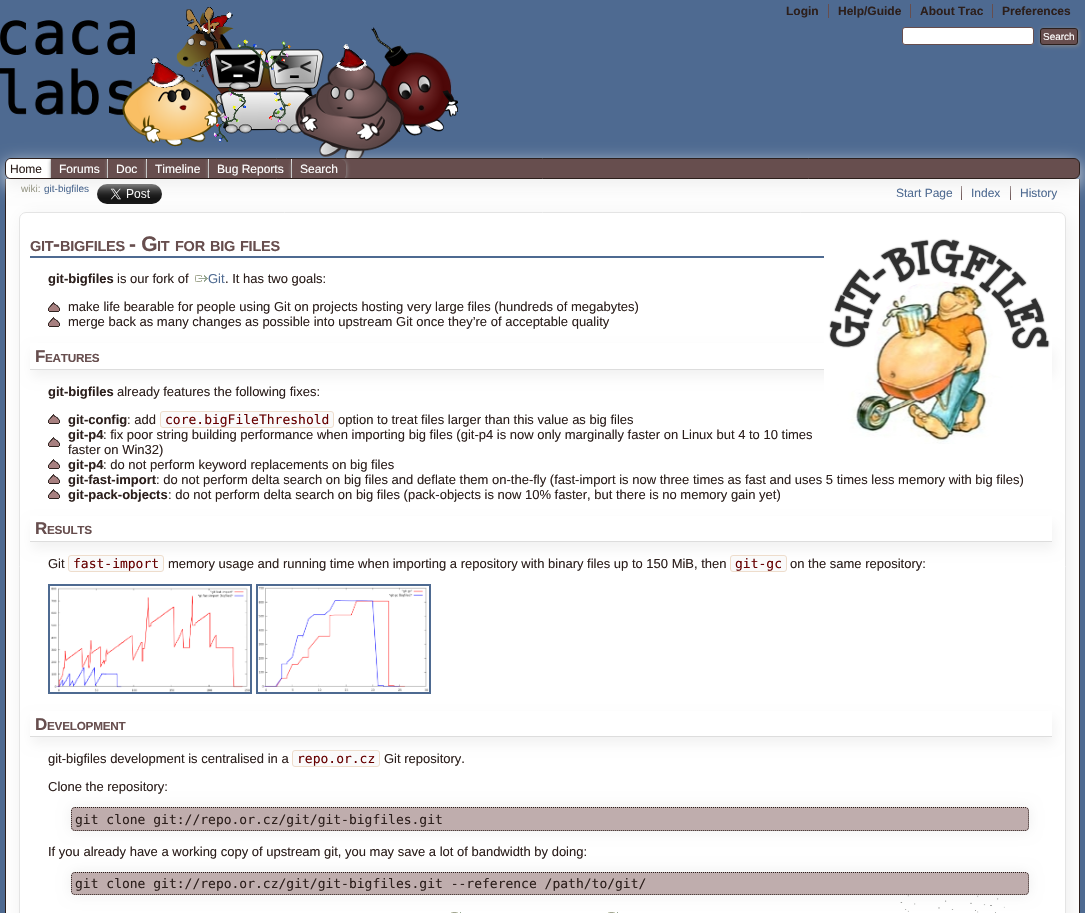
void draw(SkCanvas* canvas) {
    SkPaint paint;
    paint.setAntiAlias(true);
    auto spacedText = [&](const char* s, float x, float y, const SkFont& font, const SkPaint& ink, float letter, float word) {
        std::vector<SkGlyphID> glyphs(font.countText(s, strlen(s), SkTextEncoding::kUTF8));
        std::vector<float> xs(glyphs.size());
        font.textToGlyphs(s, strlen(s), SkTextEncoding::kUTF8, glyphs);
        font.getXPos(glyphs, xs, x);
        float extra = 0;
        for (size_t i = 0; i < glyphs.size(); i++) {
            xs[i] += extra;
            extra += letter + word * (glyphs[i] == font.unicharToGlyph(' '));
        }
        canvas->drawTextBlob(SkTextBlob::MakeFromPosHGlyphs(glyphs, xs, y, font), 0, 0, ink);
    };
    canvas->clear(0xFF4E6A91);
    canvas->drawImageRect(SkImages::DeferredFromEncodedData(SkData::MakeFromFileName("img1.png")), SkRect::MakeXYWH(0, 7, 458, 151), SkSamplingOptions());
    paint.setColor(0xFF674E4E);
    canvas->drawRect(SkRect::MakeXYWH(828, 4, 1, 14), paint);
    SkFont font1(fontMgr->matchFamilyStyle("Liberation Sans", SkFontStyle::Bold()), 12);
    font1.setSubpixel(true);
    paint.setColor(0xFF2C1F1C);
    canvas->drawString("Login", 786, 15, font1, paint);
    paint.setColor(0xFF674E4E);
    canvas->drawRect(SkRect::MakeXYWH(910, 4, 1, 14), paint);
    paint.setColor(0xFF2C1F1C);
    canvas->drawString("Help/Guide", 838, 15, font1, paint);
    paint.setColor(0xFF674E4E);
    canvas->drawRect(SkRect::MakeXYWH(992, 4, 1, 14), paint);
    paint.setColor(0xFF2C1F1C);
    canvas->drawString("About Trac", 920, 15, font1, paint);
    canvas->drawString("Preferences", 1002, 15, font1, paint);
    paint.setColor(0xFFFFFFFF);
    canvas->drawRoundRect(SkRect::MakeXYWH(902.5f, 27.5f, 131, 17), 2.5f, 2.5f, paint);
    paint.setStyle(SkPaint::kStroke_Style);
    paint.setStrokeWidth(1);
    paint.setColor(0xFF674E4E);
    canvas->drawRoundRect(SkRect::MakeXYWH(902.5f, 27.5f, 131, 17), 2.5f, 2.5f, paint);
    paint.setStyle(SkPaint::kFill_Style);
    paint.setColor(0xFF888888);
    paint.setMaskFilter(SkMaskFilter::MakeBlur(kNormal_SkBlurStyle, 2));
    canvas->drawRoundRect(SkRect::MakeXYWH(1041, 29, 38, 17), 3, 3, paint);
    paint.setMaskFilter(nullptr);
    paint.setColor(0xFF674E4E);
    canvas->drawRoundRect(SkRect::MakeXYWH(1040.5f, 28.5f, 37, 16), 2.5f, 2.5f, paint);
    paint.setStyle(SkPaint::kStroke_Style);
    paint.setColor(0xFF2C1F1C);
    canvas->drawRoundRect(SkRect::MakeXYWH(1040.5f, 28.5f, 37, 16), 2.5f, 2.5f, paint);
    SkFont font2(fontMgr->matchFamilyStyle("Liberation Sans", SkFontStyle::Normal()), 10);
    font2.setSubpixel(true);
    paint.setStyle(SkPaint::kFill_Style);
    paint.setColor(0xFFFFFFFF);
    canvas->drawString("Search", 1043, 40, font2, paint);
    canvas->drawRect(SkRect::MakeXYWH(6, 179, 1073, 734), paint);
    paint.setColor(0xFF2C1F1C);
    canvas->drawRect(SkRect::MakeXYWH(1079, 179, 1, 734), paint);
    canvas->drawRect(SkRect::MakeXYWH(5, 179, 1, 734), paint);
    canvas->drawImageRect(SkImages::DeferredFromEncodedData(SkData::MakeFromFileName("img3.png")), SkRect::MakeXYWH(97, 184, 65, 20), SkSamplingOptions());
    paint.setColor(0xFF674E4E);
    canvas->drawRect(SkRect::MakeXYWH(961, 186, 1, 14), paint);
    canvas->drawRect(SkRect::MakeXYWH(1010, 186, 1, 14), paint);
    paint.setColor(0xFFEEEEEE);
    paint.setMaskFilter(SkMaskFilter::MakeBlur(kNormal_SkBlurStyle, 9));
    canvas->drawRoundRect(SkRect::MakeXYWH(5, 164, 1075, 21), 6, 6, paint);
    paint.setMaskFilter(nullptr);
    paint.setColor(0xFF674E4E);
    canvas->drawRoundRect(SkRect::MakeXYWH(5.5f, 158.5f, 1074, 20), 5.5f, 5.5f, paint);
    paint.setStyle(SkPaint::kStroke_Style);
    paint.setColor(0xFF2C1F1C);
    canvas->drawRoundRect(SkRect::MakeXYWH(5.5f, 158.5f, 1074, 20), 5.5f, 5.5f, paint);
    canvas->save();
    canvas->clipPath(SkPathBuilder().moveTo(11, 159).lineTo(1074, 159).cubicTo(1077, 159, 1079, 161, 1079, 164).lineTo(1079, 173).cubicTo(1079, 176, 1077, 178, 1074, 178).lineTo(11, 178).cubicTo(8, 178, 6, 176, 6, 173).lineTo(6, 164).cubicTo(6, 161, 8, 159, 11, 159).close().detach(), true);
    paint.setStyle(SkPaint::kFill_Style);
    paint.setColor(0xFFFFFFFF);
    canvas->drawPath(SkPathBuilder().moveTo(8, 159).lineTo(50, 159).lineTo(50, 180).lineTo(8, 180).cubicTo(4.5f, 180, 2, 177.5f, 2, 174).lineTo(2, 165).cubicTo(2, 161.5f, 4.5f, 159, 8, 159).close().detach(), paint);
    canvas->restore();
    SkFont font3(fontMgr->matchFamilyStyle("Liberation Sans", SkFontStyle::Normal()), 12);
    font3.setSubpixel(true);
    paint.setColor(0xFF2C1F1C);
    canvas->drawString("Home", 10, 173, font3, paint);
    paint.setColor(0xFFE4E4E4);
    canvas->drawRect(SkRect::MakeXYWH(50, 159, 1, 19), paint);
    canvas->save();
    canvas->clipPath(SkPathBuilder().moveTo(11, 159).lineTo(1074, 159).cubicTo(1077, 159, 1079, 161, 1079, 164).lineTo(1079, 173).cubicTo(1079, 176, 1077, 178, 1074, 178).lineTo(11, 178).cubicTo(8, 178, 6, 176, 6, 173).lineTo(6, 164).cubicTo(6, 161, 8, 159, 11, 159).close().detach(), true);
    canvas->clipRect(SkRect::MakeXYWH(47, 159, 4, 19));
    paint.setColor(0xFF999999);
    paint.setMaskFilter(SkMaskFilter::MakeBlur(kNormal_SkBlurStyle, 2));
    canvas->drawRect(SkRect::MakeXYWH(51, 160, 57, 21), paint);
    paint.setMaskFilter(nullptr);
    canvas->restore();
    paint.setColor(0xFFFFFFFF);
    canvas->drawString("Forums", 59, 173, font3, paint);
    paint.setColor(0xFF674E4E);
    canvas->drawRect(SkRect::MakeXYWH(108, 159, 4, 19), paint);
    paint.setColor(0xFFE4E4E4);
    canvas->drawRect(SkRect::MakeXYWH(107, 159, 1, 19), paint);
    canvas->save();
    canvas->clipPath(SkPathBuilder().moveTo(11, 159).lineTo(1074, 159).cubicTo(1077, 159, 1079, 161, 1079, 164).lineTo(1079, 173).cubicTo(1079, 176, 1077, 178, 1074, 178).lineTo(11, 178).cubicTo(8, 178, 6, 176, 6, 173).lineTo(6, 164).cubicTo(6, 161, 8, 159, 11, 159).close().detach(), true);
    canvas->clipRect(SkRect::MakeXYWH(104, 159, 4, 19));
    paint.setColor(0xFF999999);
    paint.setMaskFilter(SkMaskFilter::MakeBlur(kNormal_SkBlurStyle, 2));
    canvas->drawRect(SkRect::MakeXYWH(108, 160, 38, 21), paint);
    paint.setMaskFilter(nullptr);
    canvas->restore();
    paint.setColor(0xFFFFFFFF);
    canvas->drawString("Doc", 116, 173, font3, paint);
    paint.setColor(0xFF674E4E);
    canvas->drawRect(SkRect::MakeXYWH(147, 159, 3, 19), paint);
    paint.setColor(0xFFE4E4E4);
    canvas->drawRect(SkRect::MakeXYWH(146, 159, 1, 19), paint);
    canvas->save();
    canvas->clipPath(SkPathBuilder().moveTo(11, 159).lineTo(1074, 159).cubicTo(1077, 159, 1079, 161, 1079, 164).lineTo(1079, 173).cubicTo(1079, 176, 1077, 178, 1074, 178).lineTo(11, 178).cubicTo(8, 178, 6, 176, 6, 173).lineTo(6, 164).cubicTo(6, 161, 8, 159, 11, 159).close().detach(), true);
    canvas->clipRect(SkRect::MakeXYWH(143, 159, 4, 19));
    paint.setColor(0xFF999999);
    paint.setMaskFilter(SkMaskFilter::MakeBlur(kNormal_SkBlurStyle, 2));
    canvas->drawRect(SkRect::MakeXYWH(147, 160, 61, 21), paint);
    paint.setMaskFilter(nullptr);
    canvas->restore();
    paint.setColor(0xFFFFFFFF);
    canvas->drawString("Timeline", 155, 173, font3, paint);
    paint.setColor(0xFF674E4E);
    canvas->drawRect(SkRect::MakeXYWH(209, 159, 3, 19), paint);
    paint.setColor(0xFFE4E4E4);
    canvas->drawRect(SkRect::MakeXYWH(208, 159, 1, 19), paint);
    canvas->save();
    canvas->clipPath(SkPathBuilder().moveTo(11, 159).lineTo(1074, 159).cubicTo(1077, 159, 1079, 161, 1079, 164).lineTo(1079, 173).cubicTo(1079, 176, 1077, 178, 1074, 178).lineTo(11, 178).cubicTo(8, 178, 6, 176, 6, 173).lineTo(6, 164).cubicTo(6, 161, 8, 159, 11, 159).close().detach(), true);
    canvas->clipRect(SkRect::MakeXYWH(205, 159, 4, 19));
    paint.setColor(0xFF999999);
    paint.setMaskFilter(SkMaskFilter::MakeBlur(kNormal_SkBlurStyle, 2));
    canvas->drawRect(SkRect::MakeXYWH(209, 160, 82, 21), paint);
    paint.setMaskFilter(nullptr);
    canvas->restore();
    paint.setColor(0xFFFFFFFF);
    canvas->drawString("Bug Reports", 217, 173, font3, paint);
    canvas->save();
    canvas->clipPath(SkPathBuilder().moveTo(11, 159).lineTo(1074, 159).cubicTo(1077, 159, 1079, 161, 1079, 164).lineTo(1079, 173).cubicTo(1079, 176, 1077, 178, 1074, 178).lineTo(11, 178).cubicTo(8, 178, 6, 176, 6, 173).lineTo(6, 164).cubicTo(6, 161, 8, 159, 11, 159).close().detach(), true);
    paint.setColor(0xFF674E4E);
    canvas->drawPath(SkPathBuilder().moveTo(291, 158).lineTo(340, 158).cubicTo(343.5f, 158, 346, 160.5f, 346, 164).lineTo(346, 175).cubicTo(346, 178.5f, 343.5f, 181, 340, 181).lineTo(291, 181).close().detach(), paint);
    canvas->restore();
    paint.setColor(0xFFE4E4E4);
    canvas->drawRect(SkRect::MakeXYWH(291, 159, 1, 19), paint);
    canvas->save();
    canvas->clipPath(SkPathBuilder().moveTo(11, 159).lineTo(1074, 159).cubicTo(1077, 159, 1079, 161, 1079, 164).lineTo(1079, 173).cubicTo(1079, 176, 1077, 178, 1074, 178).lineTo(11, 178).cubicTo(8, 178, 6, 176, 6, 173).lineTo(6, 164).cubicTo(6, 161, 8, 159, 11, 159).close().detach(), true);
    canvas->clipPath(SkPathBuilder(SkPathFillType::kEvenOdd).moveTo(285, 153).lineTo(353, 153).lineTo(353, 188).lineTo(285, 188).close().moveTo(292, 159).lineTo(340, 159).cubicTo(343.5f, 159, 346, 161.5f, 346, 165).lineTo(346, 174).cubicTo(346, 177.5f, 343.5f, 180, 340, 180).lineTo(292, 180).close().detach(), true);
    paint.setColor(0xFF999999);
    paint.setMaskFilter(SkMaskFilter::MakeBlur(kNormal_SkBlurStyle, 2));
    canvas->drawRoundRect(SkRect::MakeXYWH(292, 160, 54, 21), 6, 6, paint);
    paint.setMaskFilter(nullptr);
    canvas->restore();
    paint.setColor(0xFFFFFFFF);
    canvas->drawString("Search", 300, 173, font3, paint);
    canvas->drawImageRect(SkImages::DeferredFromEncodedData(SkData::MakeFromFileName("img2.png")), SkRect::MakeXYWH(900, 895, 105, 18), SkSamplingOptions());
    paint.setColor(0xFF999988);
    canvas->drawString("wiki:", 21, 192, font2, paint);
    paint.setColor(0xFF4E6A91);
    canvas->drawString("git-bigfiles", 44, 192, font2, paint);
    canvas->drawString("Start Page", 896, 197, font3, paint);
    canvas->drawString("Index", 971, 197, font3, paint);
    canvas->drawString("History", 1020, 197, font3, paint);
    canvas->save();
    canvas->clipRect(SkRect::MakeXYWH(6, 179, 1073, 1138));
    canvas->clipPath(SkPathBuilder(SkPathFillType::kEvenOdd).moveTo(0, 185).lineTo(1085, 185).lineTo(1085, 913).lineTo(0, 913).close().moveTo(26, 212).lineTo(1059, 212).cubicTo(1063, 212, 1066, 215, 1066, 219).lineTo(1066, 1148).cubicTo(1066, 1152, 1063, 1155, 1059, 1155).lineTo(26, 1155).cubicTo(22, 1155, 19, 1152, 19, 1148).lineTo(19, 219).cubicTo(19, 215, 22, 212, 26, 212).close().detach(), true);
    paint.setColor(0xFFEEEEEE);
    paint.setMaskFilter(SkMaskFilter::MakeBlur(kNormal_SkBlurStyle, 10));
    canvas->drawRoundRect(SkRect::MakeXYWH(22, 216, 1047, 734), 7, 7, paint);
    paint.setMaskFilter(nullptr);
    canvas->restore();
    paint.setStyle(SkPaint::kStroke_Style);
    paint.setColor(0xFFE4E4E4);
    canvas->drawRoundRect(SkRect::MakeXYWH(19.5f, 212.5f, 1046, 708), 6.5f, 6.5f, paint);
    paint.setStyle(SkPaint::kFill_Style);
    paint.setColor(0xFF4E6A91);
    canvas->drawRect(SkRect::MakeXYWH(30, 256, 794, 2), paint);
    SkFont font4(fontMgr->matchFamilyStyle("Liberation Sans", SkFontStyle::Bold()), 14.5f);
    font4.setSubpixel(true);
    paint.setColor(0xFF674E4E);
    spacedText("GIT", 30, 251, font4, paint, -0.25f, 0);
    SkFont font5(fontMgr->matchFamilyStyle("Liberation Sans", SkFontStyle::Bold()), 21);
    font5.setSubpixel(true);
    spacedText("-", 53, 251, font5, paint, -0.25f, 0);
    spacedText("BIGFILES", 60, 251, font4, paint, -0.25f, 0);
    spacedText("- G", 129, 251, font5, paint, -0.25f, 0);
    spacedText("IT", 157, 251, font4, paint, -0.25f, 0);
    spacedText("FOR", 175, 251, font4, paint, -0.25f, 0);
    spacedText("BIG", 210, 251, font4, paint, -0.25f, 0);
    spacedText("FILES", 240, 251, font4, paint, -0.25f, 0);
    canvas->save();
    canvas->clipPath(SkPathBuilder(SkPathFillType::kEvenOdd).moveTo(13, 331).lineTo(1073, 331).lineTo(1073, 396).lineTo(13, 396).close().moveTo(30, 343).lineTo(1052, 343).lineTo(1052, 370).lineTo(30, 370).close().detach(), true);
    paint.setColor(0xFFF2F2F2);
    paint.setMaskFilter(SkMaskFilter::MakeBlur(kNormal_SkBlurStyle, 6));
    canvas->drawRect(SkRect::MakeXYWH(32, 350, 1022, 27), paint);
    paint.setMaskFilter(nullptr);
    canvas->restore();
    canvas->drawImageRect(SkImages::DeferredFromEncodedData(SkData::MakeFromFileName("img4.png")), SkRect::MakeXYWH(824, 238, 228, 206), SkSamplingOptions());
    SkFont font6(fontMgr->matchFamilyStyle("Liberation Sans", SkFontStyle::Bold()), 13);
    font6.setSubpixel(true);
    paint.setColor(0xFF2C1F1C);
    canvas->drawString("git-bigfiles", 48, 283, font6, paint);
    SkFont font7(fontMgr->matchFamilyStyle("Liberation Sans", SkFontStyle::Normal()), 13);
    font7.setSubpixel(true);
    canvas->drawString("is our fork of", 117, 283, font7, paint);
    canvas->drawImageRect(SkImages::DeferredFromEncodedData(SkData::MakeFromFileName("img5.png")), SkRect::MakeXYWH(195, 275, 13, 7), SkSamplingOptions());
    paint.setColor(0xFF4E6A91);
    canvas->drawString("Git", 208, 283, font7, paint);
    paint.setColor(0xFF2C1F1C);
    canvas->drawString(". It has two goals:", 225, 283, font7, paint);
    canvas->drawImageRect(SkImages::DeferredFromEncodedData(SkData::MakeFromFileName("img6.png")), SkRect::MakeXYWH(48, 302, 12, 10), SkSamplingOptions());
    canvas->drawString("make life bearable for people using Git on projects hosting very large files (hundreds of megabytes)", 68, 311, font7, paint);
    canvas->drawImageRect(SkImages::DeferredFromEncodedData(SkData::MakeFromFileName("img6.png")), SkRect::MakeXYWH(48, 317, 12, 10), SkSamplingOptions());
    canvas->drawString("merge back as many changes as possible into upstream Git once they’re of acceptable quality", 68, 326, font7, paint);
    paint.setColor(0xFFDDDDDD);
    canvas->drawRect(SkRect::MakeXYWH(30, 369, 794, 1), paint);
    SkFont font8(fontMgr->matchFamilyStyle("Liberation Sans", SkFontStyle::Bold()), 17);
    font8.setSubpixel(true);
    paint.setColor(0xFF674E4E);
    spacedText("F", 35, 362, font8, paint, -0.25f, 0);
    SkFont font9(fontMgr->matchFamilyStyle("Liberation Sans", SkFontStyle::Bold()), 11.75f);
    font9.setSubpixel(true);
    spacedText("EATURES", 45, 362, font9, paint, -0.25f, 0);
    paint.setColor(0xFF2C1F1C);
    canvas->drawString("git-bigfiles", 48, 396, font6, paint);
    canvas->drawString("already features the following fixes:", 117, 396, font7, paint);
    canvas->drawImageRect(SkImages::DeferredFromEncodedData(SkData::MakeFromFileName("img6.png")), SkRect::MakeXYWH(48, 414, 12, 10), SkSamplingOptions());
    canvas->drawString("git-config", 68, 424, font6, paint);
    canvas->drawString(": add", 127, 424, font7, paint);
    paint.setColor(0xFFFAFAFA);
    canvas->drawRoundRect(SkRect::MakeXYWH(160.5f, 411.5f, 173, 16), 2.5f, 2.5f, paint);
    paint.setStyle(SkPaint::kStroke_Style);
    paint.setColor(0xFFEEDDCC);
    canvas->drawRoundRect(SkRect::MakeXYWH(160.5f, 411.5f, 173, 16), 2.5f, 2.5f, paint);
    SkFont font10(fontMgr->matchFamilyStyle("DejaVu Sans Mono", SkFontStyle::Normal()), 13);
    font10.setSubpixel(true);
    paint.setStyle(SkPaint::kFill_Style);
    paint.setColor(0xFF660000);
    canvas->drawString("core.bigFileThreshold", 165, 424, font10, paint);
    paint.setColor(0xFF2C1F1C);
    canvas->drawString("option to treat files larger than this value as big files", 338, 424, font7, paint);
    canvas->drawImageRect(SkImages::DeferredFromEncodedData(SkData::MakeFromFileName("img6.png")), SkRect::MakeXYWH(48, 437, 12, 10), SkSamplingOptions());
    canvas->drawString("git-p4", 68, 439, font6, paint);
    canvas->drawString(": fix poor string building performance when importing big files (git-p4 is now only marginally faster on Linux but 4 to 10 times", 103, 439, font7, paint);
    canvas->drawString("faster on Win32)", 68, 454, font7, paint);
    canvas->drawImageRect(SkImages::DeferredFromEncodedData(SkData::MakeFromFileName("img6.png")), SkRect::MakeXYWH(48, 459, 12, 10), SkSamplingOptions());
    canvas->drawString("git-p4", 68, 469, font6, paint);
    canvas->drawString(": do not perform keyword replacements on big files", 103, 469, font7, paint);
    canvas->drawImageRect(SkImages::DeferredFromEncodedData(SkData::MakeFromFileName("img6.png")), SkRect::MakeXYWH(48, 474, 12, 10), SkSamplingOptions());
    canvas->drawString("git-fast-import", 68, 484, font6, paint);
    canvas->drawString(": do not perform delta search on big files and deflate them on-the-fly (fast-import is now three times as fast and uses 5 times less memory with big files)", 156, 484, font7, paint);
    canvas->drawImageRect(SkImages::DeferredFromEncodedData(SkData::MakeFromFileName("img6.png")), SkRect::MakeXYWH(48, 489, 12, 10), SkSamplingOptions());
    canvas->drawString("git-pack-objects", 68, 499, font6, paint);
    canvas->drawString(": do not perform delta search on big files (pack-objects is now 10% faster, but there is no memory gain yet)", 168, 499, font7, paint);
    canvas->save();
    canvas->clipPath(SkPathBuilder(SkPathFillType::kEvenOdd).moveTo(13, 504).lineTo(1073, 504).lineTo(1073, 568).lineTo(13, 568).close().moveTo(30, 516).lineTo(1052, 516).lineTo(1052, 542).lineTo(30, 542).close().detach(), true);
    paint.setColor(0xFFF2F2F2);
    paint.setMaskFilter(SkMaskFilter::MakeBlur(kNormal_SkBlurStyle, 6));
    canvas->drawRect(SkRect::MakeXYWH(32, 523, 1022, 26), paint);
    paint.setMaskFilter(nullptr);
    canvas->restore();
    paint.setColor(0xFFDDDDDD);
    canvas->drawRect(SkRect::MakeXYWH(30, 541, 1022, 1), paint);
    paint.setColor(0xFF674E4E);
    spacedText("R", 35, 534, font8, paint, -0.25f, 0);
    spacedText("ESULTS", 47, 534, font9, paint, -0.25f, 0);
    paint.setColor(0xFF2C1F1C);
    canvas->drawString("Git", 48, 568, font7, paint);
    paint.setColor(0xFFFAFAFA);
    canvas->drawRoundRect(SkRect::MakeXYWH(68.5f, 555.5f, 95, 16), 2.5f, 2.5f, paint);
    paint.setStyle(SkPaint::kStroke_Style);
    paint.setColor(0xFFEEDDCC);
    canvas->drawRoundRect(SkRect::MakeXYWH(68.5f, 555.5f, 95, 16), 2.5f, 2.5f, paint);
    paint.setStyle(SkPaint::kFill_Style);
    paint.setColor(0xFF660000);
    canvas->drawString("fast-import", 73, 568, font10, paint);
    paint.setColor(0xFF2C1F1C);
    canvas->drawString("memory usage and running time when importing a repository with binary files up to 150 MiB, then", 168, 568, font7, paint);
    paint.setColor(0xFFFAFAFA);
    canvas->drawRoundRect(SkRect::MakeXYWH(730.5f, 555.5f, 56, 16), 2.5f, 2.5f, paint);
    paint.setStyle(SkPaint::kStroke_Style);
    paint.setColor(0xFFEEDDCC);
    canvas->drawRoundRect(SkRect::MakeXYWH(730.5f, 555.5f, 56, 16), 2.5f, 2.5f, paint);
    paint.setStyle(SkPaint::kFill_Style);
    paint.setColor(0xFF660000);
    canvas->drawString("git-gc", 735, 568, font10, paint);
    paint.setColor(0xFF2C1F1C);
    canvas->drawString("on the same repository:", 790, 568, font7, paint);
    paint.setStyle(SkPaint::kStroke_Style);
    paint.setStrokeWidth(2);
    paint.setColor(0xFF4E6A91);
    canvas->drawRect(SkRect::MakeXYWH(49, 585, 202, 108), paint);
    canvas->drawRect(SkRect::MakeXYWH(257, 585, 173, 108), paint);
    canvas->drawImageRect(SkImages::DeferredFromEncodedData(SkData::MakeFromFileName("img7.png")), SkRect::MakeXYWH(51, 587, 199, 105), SkSamplingOptions());
    canvas->drawImageRect(SkImages::DeferredFromEncodedData(SkData::MakeFromFileName("img8.png")), SkRect::MakeXYWH(258, 586, 171, 106), SkSamplingOptions());
    canvas->save();
    canvas->clipPath(SkPathBuilder(SkPathFillType::kEvenOdd).moveTo(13, 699).lineTo(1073, 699).lineTo(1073, 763).lineTo(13, 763).close().moveTo(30, 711).lineTo(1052, 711).lineTo(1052, 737).lineTo(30, 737).close().detach(), true);
    paint.setStyle(SkPaint::kFill_Style);
    paint.setColor(0xFFF2F2F2);
    paint.setMaskFilter(SkMaskFilter::MakeBlur(kNormal_SkBlurStyle, 6));
    canvas->drawRect(SkRect::MakeXYWH(32, 718, 1022, 26), paint);
    paint.setMaskFilter(nullptr);
    canvas->restore();
    paint.setColor(0xFFDDDDDD);
    canvas->drawRect(SkRect::MakeXYWH(30, 736, 1022, 1), paint);
    paint.setColor(0xFF674E4E);
    spacedText("D", 35, 730, font8, paint, -0.25f, 0);
    spacedText("EVELOPMENT", 47, 730, font9, paint, -0.25f, 0);
    paint.setColor(0xFF2C1F1C);
    canvas->drawString("git-bigfiles development is centralised in a", 48, 763, font7, paint);
    paint.setColor(0xFFFAFAFA);
    canvas->drawRoundRect(SkRect::MakeXYWH(292.5f, 750.5f, 87, 16), 2.5f, 2.5f, paint);
    paint.setStyle(SkPaint::kStroke_Style);
    paint.setStrokeWidth(1);
    paint.setColor(0xFFEEDDCC);
    canvas->drawRoundRect(SkRect::MakeXYWH(292.5f, 750.5f, 87, 16), 2.5f, 2.5f, paint);
    paint.setStyle(SkPaint::kFill_Style);
    paint.setColor(0xFF660000);
    canvas->drawString("repo.or.cz", 297, 763, font10, paint);
    paint.setColor(0xFF2C1F1C);
    canvas->drawString("Git repository.", 384, 763, font7, paint);
    canvas->drawString("Clone the repository:", 48, 791, font7, paint);
    paint.setColor(0xFFEEEEEE);
    paint.setMaskFilter(SkMaskFilter::MakeBlur(kNormal_SkBlurStyle, 6.5f));
    canvas->drawRoundRect(SkRect::MakeXYWH(71, 807, 958, 24), 4, 4, paint);
    paint.setMaskFilter(nullptr);
    paint.setColor(0xFFBFADAD);
    canvas->drawRoundRect(SkRect::MakeXYWH(71, 807, 958, 24), 4, 4, paint);
    paint.setStyle(SkPaint::kStroke_Style);
    paint.setColor(0xFF2C1F1C);
    paint.setPathEffect(SkDashPathEffect::Make({{1, 1}}, 0));
    canvas->drawPath(SkPathBuilder().moveTo(75, 807.5f).lineTo(1025, 807.5f).cubicTo(1027, 807.5f, 1028.5f, 809, 1028.5f, 811).lineTo(1028.5f, 827).cubicTo(1028.5f, 829, 1027, 830.5f, 1025, 830.5f).lineTo(75, 830.5f).cubicTo(73, 830.5f, 71.5f, 829, 71.5f, 827).lineTo(71.5f, 811).cubicTo(71.5f, 809, 73, 807.5f, 75, 807.5f).close().detach(), paint);
    paint.setPathEffect(nullptr);
    paint.setStyle(SkPaint::kFill_Style);
    canvas->drawString("git clone git://repo.or.cz/git/git-bigfiles.git", 75, 824, font10, paint);
    canvas->drawString("If you already have a working copy of upstream git, you may save a lot of bandwidth by doing:", 48, 856, font7, paint);
    canvas->drawImageRect(SkImages::DeferredFromEncodedData(SkData::MakeFromFileName("img9.png")), SkRect::MakeXYWH(451, 912, 10, 1), SkSamplingOptions());
    canvas->drawImageRect(SkImages::DeferredFromEncodedData(SkData::MakeFromFileName("img9.png")), SkRect::MakeXYWH(608, 912, 10, 1), SkSamplingOptions());
    paint.setColor(0xFFEEEEEE);
    paint.setMaskFilter(SkMaskFilter::MakeBlur(kNormal_SkBlurStyle, 6.5f));
    canvas->drawRoundRect(SkRect::MakeXYWH(71, 872, 958, 23), 4, 4, paint);
    paint.setMaskFilter(nullptr);
    paint.setColor(0xFFBFADAD);
    canvas->drawRoundRect(SkRect::MakeXYWH(71, 872, 958, 23), 4, 4, paint);
    paint.setStyle(SkPaint::kStroke_Style);
    paint.setColor(0xFF2C1F1C);
    paint.setPathEffect(SkDashPathEffect::Make({{1, 1}}, 0));
    canvas->drawPath(SkPathBuilder().moveTo(75, 872.5f).lineTo(1025, 872.5f).cubicTo(1027, 872.5f, 1028.5f, 874, 1028.5f, 876).lineTo(1028.5f, 891).cubicTo(1028.5f, 893, 1027, 894.5f, 1025, 894.5f).lineTo(75, 894.5f).cubicTo(73, 894.5f, 71.5f, 893, 71.5f, 891).lineTo(71.5f, 876).cubicTo(71.5f, 874, 73, 872.5f, 75, 872.5f).close().detach(), paint);
    paint.setPathEffect(nullptr);
    paint.setStyle(SkPaint::kFill_Style);
    canvas->drawString("git clone git://repo.or.cz/git/git-bigfiles.git --reference /path/to/git/", 75, 888, font10, paint);
}
